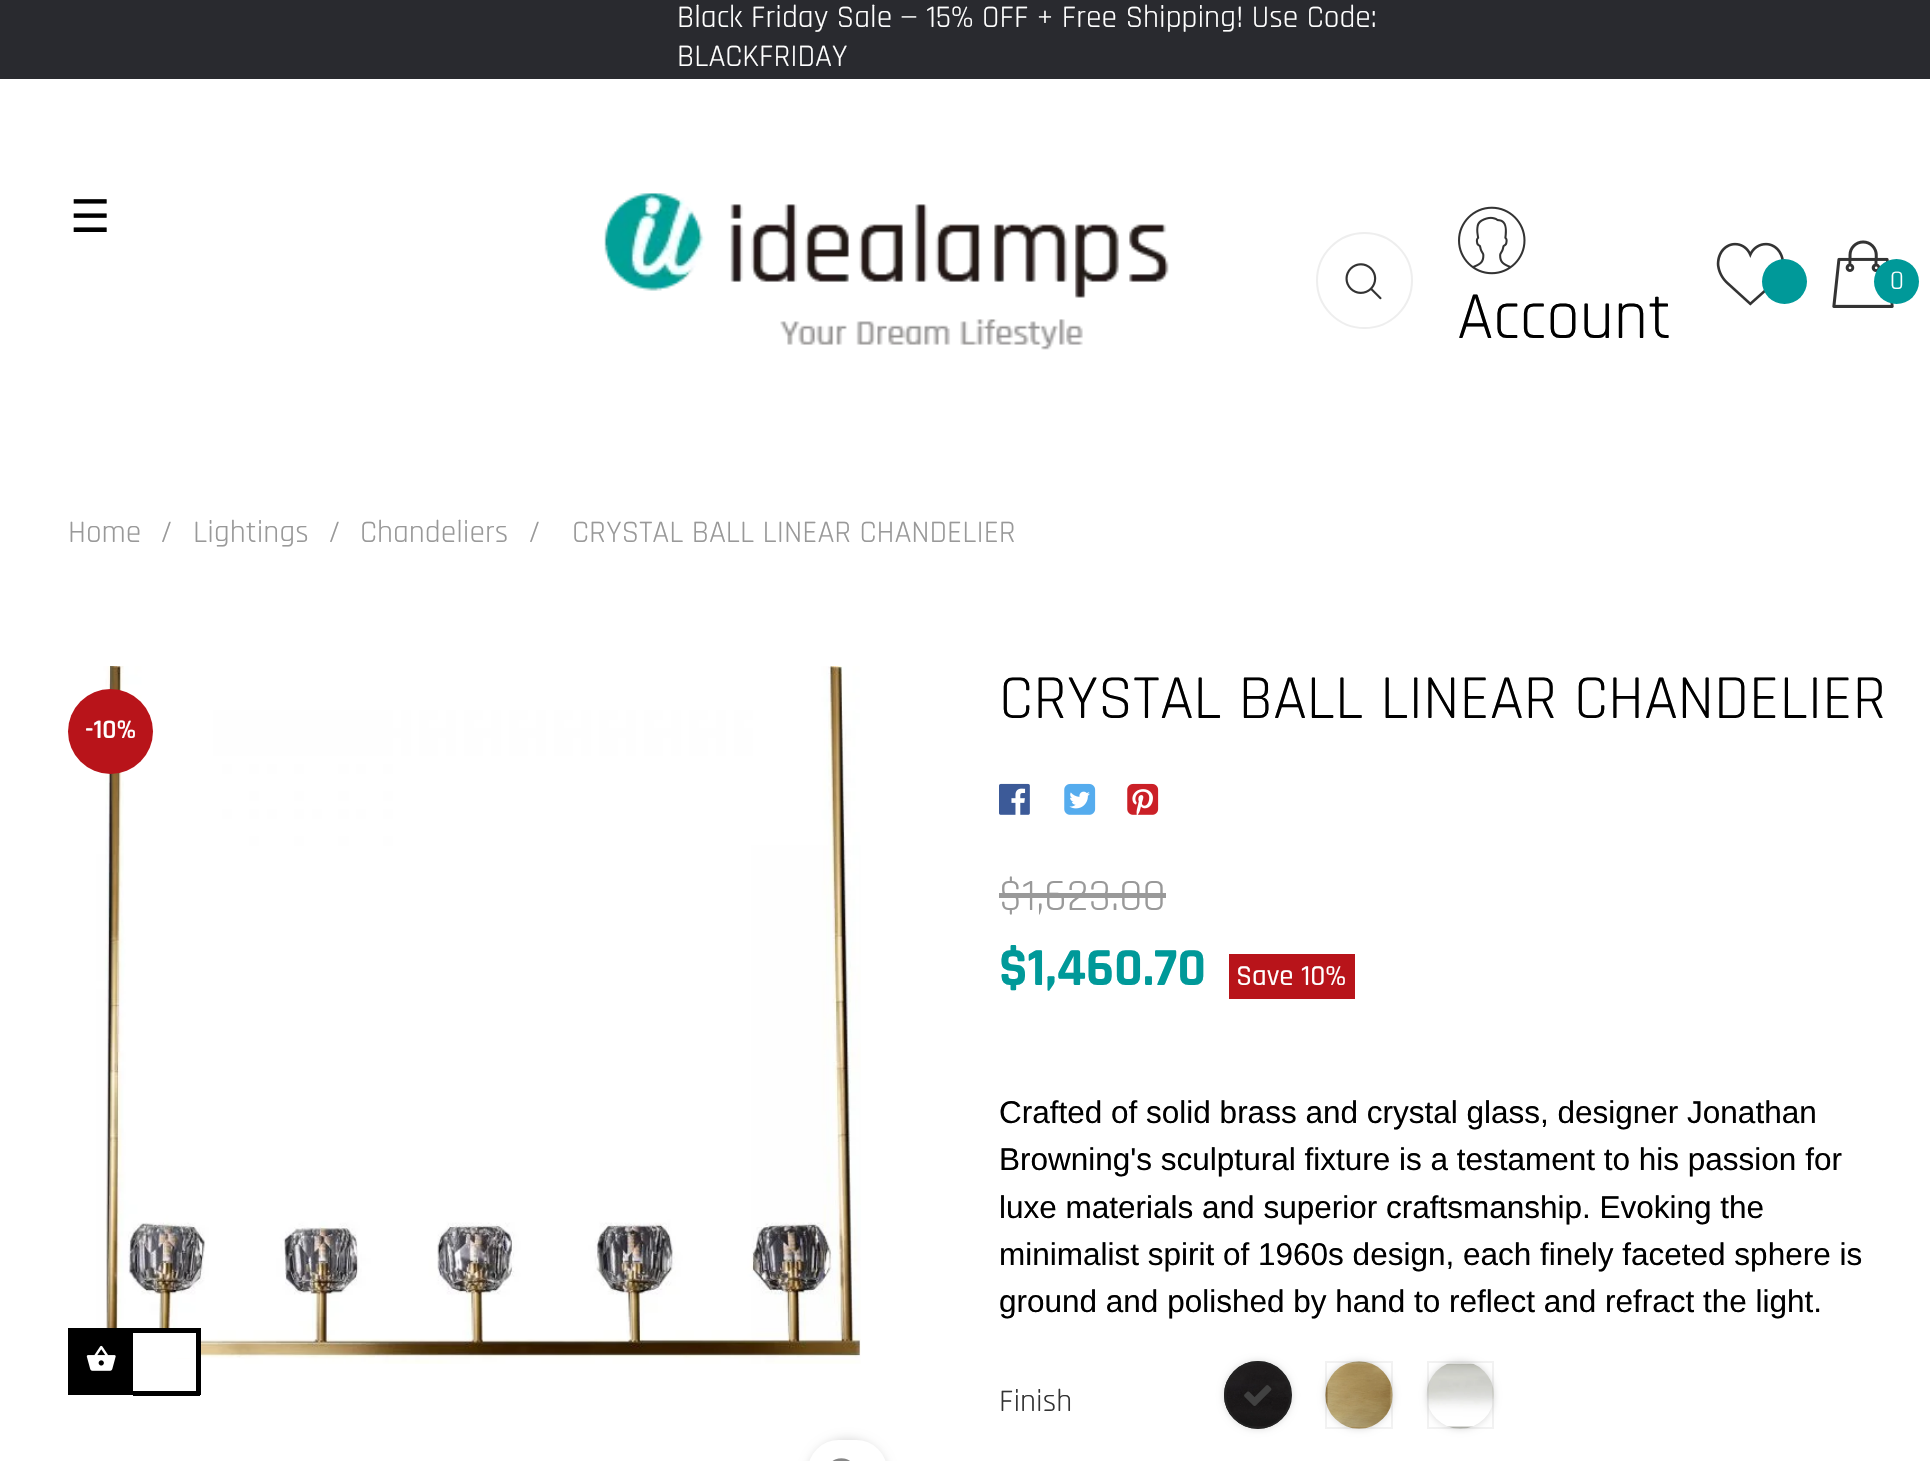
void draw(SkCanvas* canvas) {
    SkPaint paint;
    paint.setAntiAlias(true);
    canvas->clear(0xFFFFFFFF);
    paint.setColor(0xFF292A2F);
    canvas->drawRect(SkRect::MakeXYWH(0, 0, 1930, 79), paint);
    SkFont font1(fontMgr->matchFamilyStyle("Rajdhani", SkFontStyle::Normal()), 31.5f);
    font1.setSubpixel(true);
    paint.setColor(0xFFFFFFFF);
    canvas->drawString("Black Friday Sale — 15% OFF + Free Shipping! Use Code:", 677, 27, font1, paint);
    canvas->drawString("BLACKFRIDAY", 677, 66, font1, paint);
    SkFont font2(fontMgr->matchFamilyStyle("DejaVu Sans", SkFontStyle::Normal()), 45);
    font2.setSubpixel(true);
    paint.setColor(0xFF000000);
    canvas->drawString("☰", 70, 232, font2, paint);
    canvas->drawImageRect(SkImages::DeferredFromEncodedData(SkData::MakeFromFileName("img1.png")), SkRect::MakeXYWH(604, 193, 565, 157), SkSamplingOptions());
    paint.setStyle(SkPaint::kStroke_Style);
    paint.setStrokeWidth(2);
    paint.setColor(0xFFEEEEEE);
    canvas->drawCircle(1364.5f, 280.5f, 47.5f, paint);
    canvas->drawImageRect(SkImages::DeferredFromEncodedData(SkData::MakeFromFileName("img2.png")), SkRect::MakeXYWH(1345, 263, 37, 37), SkSamplingOptions());
    canvas->drawImageRect(SkImages::DeferredFromEncodedData(SkData::MakeFromFileName("img3.png")), SkRect::MakeXYWH(1716, 242, 68, 64), SkSamplingOptions());
    paint.setStyle(SkPaint::kFill_Style);
    paint.setColor(0xFF009999);
    canvas->drawCircle(1784.5f, 281.5f, 22.5f, paint);
    canvas->drawImageRect(SkImages::DeferredFromEncodedData(SkData::MakeFromFileName("img4.png")), SkRect::MakeXYWH(1832, 240, 62, 68), SkSamplingOptions());
    canvas->drawCircle(1896.5f, 281.5f, 22.5f, paint);
    SkFont font3(fontMgr->matchFamilyStyle("Rajdhani", SkFontStyle::Normal()), 27);
    font3.setSubpixel(true);
    paint.setColor(0xFFFFFFFF);
    canvas->drawString("0", 1890, 289, font3, paint);
    canvas->drawImageRect(SkImages::DeferredFromEncodedData(SkData::MakeFromFileName("img5.png")), SkRect::MakeXYWH(1458, 206, 68, 69), SkSamplingOptions());
    SkFont font4(fontMgr->matchFamilyStyle("Rajdhani", SkFontStyle::Normal()), 67.5f);
    font4.setSubpixel(true);
    paint.setColor(0xFF000000);
    canvas->drawString("Account", 1457, 338, font4, paint);
    paint.setColor(0xFF999999);
    canvas->drawString("Home", 68, 542, font1, paint);
    canvas->drawString("/", 160, 542, font1, paint);
    canvas->drawString("Lightings", 193, 542, font1, paint);
    canvas->drawString("/", 328, 542, font1, paint);
    canvas->drawString("Chandeliers", 360, 542, font1, paint);
    canvas->drawString("/", 528, 542, font1, paint);
    canvas->drawString("CRYSTAL BALL LINEAR CHANDELIER", 572, 542, font1, paint);
    canvas->drawImageRect(SkImages::DeferredFromEncodedData(SkData::MakeFromFileName("img6.png")), SkRect::MakeXYWH(96, 666, 765, 698), SkSamplingOptions());
    paint.setColor(0xFFB8141A);
    canvas->drawCircle(110.5f, 731.5f, 42.5f, paint);
    SkFont font5(fontMgr->matchFamilyStyle("Rajdhani", SkFontStyle(600, SkFontStyle::kNormal_Width, SkFontStyle::kUpright_Slant)), 27);
    font5.setSubpixel(true);
    paint.setColor(0xFFFFFFFF);
    canvas->drawString("-10%", 85, 738, font5, paint);
    paint.setColor(0x2E000000);
    paint.setMaskFilter(SkMaskFilter::MakeBlur(kNormal_SkBlurStyle, 5.5f));
    canvas->drawRoundRect(SkRect::MakeXYWH(808, 1440, 79, 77), 39.5f, 39.5f, paint);
    paint.setMaskFilter(nullptr);
    paint.setColor(0xFFFFFFFF);
    canvas->drawRoundRect(SkRect::MakeXYWH(808, 1440, 79, 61), 39.5f, 39.5f, paint);
    canvas->drawImageRect(SkImages::DeferredFromEncodedData(SkData::MakeFromFileName("img7.png")), SkRect::MakeXYWH(832, 1458, 18, 3), SkSamplingOptions());
    SkFont font6(fontMgr->matchFamilyStyle("Rajdhani", SkFontStyle::Normal()), 63);
    font6.setSubpixel(true);
    paint.setColor(0xFF000000);
    canvas->drawString("CRYSTAL BALL LINEAR CHANDELIER", 999, 718, font6, paint);
    canvas->drawImageRect(SkImages::DeferredFromEncodedData(SkData::MakeFromFileName("img8.png")), SkRect::MakeXYWH(999, 783, 31, 32), SkSamplingOptions());
    canvas->drawImageRect(SkImages::DeferredFromEncodedData(SkData::MakeFromFileName("img9.png")), SkRect::MakeXYWH(1064, 783, 32, 32), SkSamplingOptions());
    canvas->drawImageRect(SkImages::DeferredFromEncodedData(SkData::MakeFromFileName("img10.png")), SkRect::MakeXYWH(1127, 783, 32, 32), SkSamplingOptions());
    SkFont font7(fontMgr->matchFamilyStyle("Rajdhani", SkFontStyle::Normal()), 45);
    font7.setSubpixel(true);
    paint.setColor(0xFF999999);
    canvas->drawString("$1,623.00", 999, 910, font7, paint);
    canvas->drawRect(SkRect::MakeXYWH(999, 893, 167, 5), paint);
    SkFont font8(fontMgr->matchFamilyStyle("Rajdhani", SkFontStyle::Bold()), 54);
    font8.setSubpixel(true);
    paint.setColor(0xFF009999);
    canvas->drawString("$1,460.70", 999, 985, font8, paint);
    paint.setColor(0xFFB8141A);
    canvas->drawRect(SkRect::MakeXYWH(1229, 954, 126, 45), paint);
    SkFont font9(fontMgr->matchFamilyStyle("Rajdhani", SkFontStyle(500, SkFontStyle::kNormal_Width, SkFontStyle::kUpright_Slant)), 29);
    font9.setSubpixel(true);
    paint.setColor(0xFFFFFFFF);
    canvas->drawString("Save 10%", 1236, 985, font9, paint);
    SkFont font10(fontMgr->matchFamilyStyle("Liberation Sans", SkFontStyle::Normal()), 31.5f);
    font10.setSubpixel(true);
    paint.setColor(0xFF000000);
    canvas->drawString("Crafted of solid brass and crystal glass, designer Jonathan", 999, 1123, font10, paint);
    canvas->drawString("Browning's sculptural fixture is a testament to his passion for", 999, 1170, font10, paint);
    canvas->drawString("luxe materials and superior craftsmanship. Evoking the", 999, 1218, font10, paint);
    canvas->drawString("minimalist spirit of 1960s design, each finely faceted sphere is", 999, 1265, font10, paint);
    canvas->drawString("ground and polished by hand to reflect and refract the light.", 999, 1312, font10, paint);
    paint.setColor(0xFF333333);
    canvas->drawString("Finish", 999, 1411, font1, paint);
    paint.setColor(0x26000000);
    paint.setMaskFilter(SkMaskFilter::MakeBlur(kNormal_SkBlurStyle, 3.5f));
    canvas->drawRoundRect(SkRect::MakeXYWH(1224, 1361, 68, 68), 34, 34, paint);
    paint.setMaskFilter(nullptr);
    canvas->drawImageRect(SkImages::DeferredFromEncodedData(SkData::MakeFromFileName("img11.png")), SkRect::MakeXYWH(1224, 1361, 68, 68), SkSamplingOptions());
    paint.setStyle(SkPaint::kStroke_Style);
    paint.setColor(0xFF222222);
    canvas->drawCircle(1258, 1395, 33, paint);
    canvas->drawImageRect(SkImages::DeferredFromEncodedData(SkData::MakeFromFileName("img12.png")), SkRect::MakeXYWH(1244, 1385, 28, 21), SkSamplingOptions());
    paint.setStyle(SkPaint::kFill_Style);
    paint.setColor(0x26000000);
    paint.setMaskFilter(SkMaskFilter::MakeBlur(kNormal_SkBlurStyle, 3.5f));
    canvas->drawRoundRect(SkRect::MakeXYWH(1325, 1361, 68, 68), 34, 34, paint);
    paint.setMaskFilter(nullptr);
    canvas->drawImageRect(SkImages::DeferredFromEncodedData(SkData::MakeFromFileName("img13.png")), SkRect::MakeXYWH(1325, 1361, 68, 68), SkSamplingOptions());
    paint.setStyle(SkPaint::kStroke_Style);
    paint.setColor(0x0D000000);
    canvas->drawRect(SkRect::MakeXYWH(1326, 1362, 66, 66), paint);
    paint.setStyle(SkPaint::kFill_Style);
    paint.setColor(0x26000000);
    paint.setMaskFilter(SkMaskFilter::MakeBlur(kNormal_SkBlurStyle, 3.5f));
    canvas->drawRoundRect(SkRect::MakeXYWH(1427, 1361, 67, 68), 33.5f, 33.5f, paint);
    paint.setMaskFilter(nullptr);
    canvas->drawImageRect(SkImages::DeferredFromEncodedData(SkData::MakeFromFileName("img14.png")), SkRect::MakeXYWH(1426, 1363, 68, 66), SkSamplingOptions());
    paint.setStyle(SkPaint::kStroke_Style);
    paint.setColor(0x0D000000);
    canvas->drawRect(SkRect::MakeXYWH(1428, 1362, 65, 66), paint);
    paint.setStyle(SkPaint::kFill_Style);
    paint.setColor(0xFF000000);
    canvas->drawRect(SkRect::MakeXYWH(68, 1328, 65, 67), paint);
    canvas->drawImageRect(SkImages::DeferredFromEncodedData(SkData::MakeFromFileName("img15.png")), SkRect::MakeXYWH(86, 1345, 30, 26), SkSamplingOptions());
    paint.setColor(0xFFFFFFFF);
    canvas->drawRect(SkRect::MakeXYWH(133, 1333, 63, 25), paint);
    paint.setColor(0xFF000000);
    canvas->drawRect(SkRect::MakeXYWH(133, 1328, 67, 5), paint);
    canvas->drawRect(SkRect::MakeXYWH(196, 1328, 5, 67), paint);
    canvas->drawRect(SkRect::MakeXYWH(133, 1391, 67, 5), paint);
}
